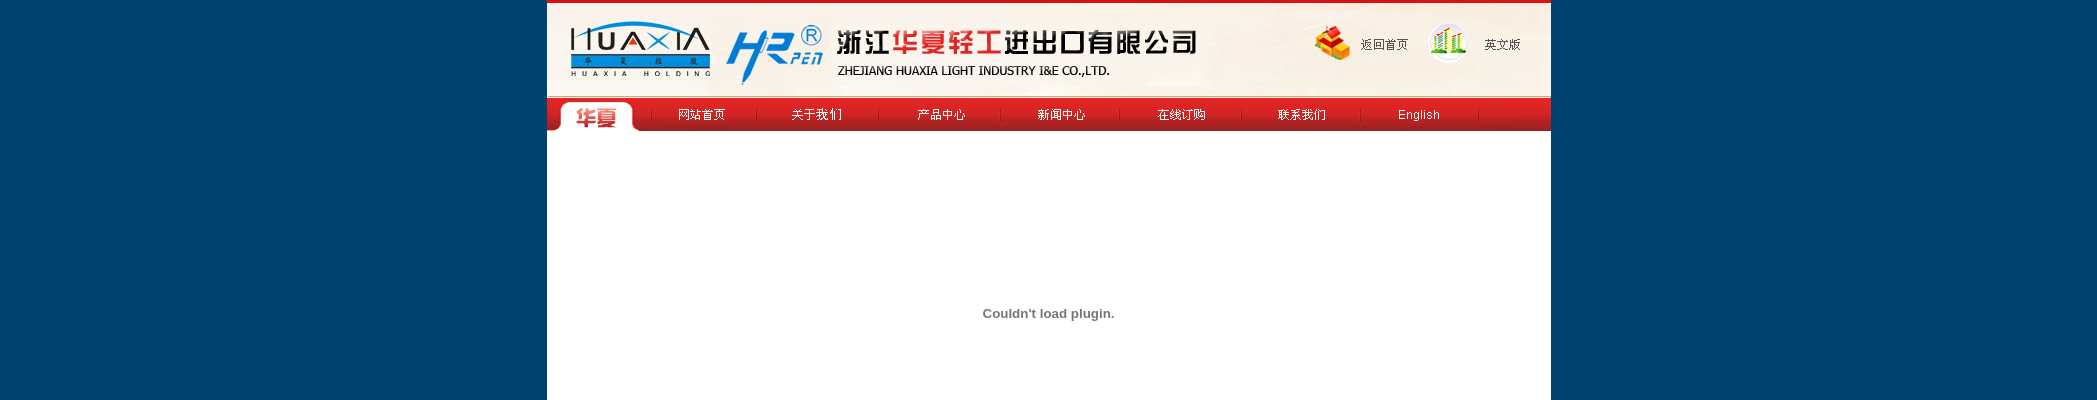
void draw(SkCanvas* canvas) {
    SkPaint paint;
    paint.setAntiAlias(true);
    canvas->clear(0xFF01436F);
    paint.setColor(0xFFFFFFFF);
    canvas->drawRect(SkRect::MakeXYWH(547, 131, 1004, 269), paint);
    canvas->drawImageRect(SkImages::DeferredFromEncodedData(SkData::MakeFromFileName("img1.png")), SkRect::MakeXYWH(547, 0, 1004, 96), SkSamplingOptions());
    canvas->drawImageRect(SkImages::DeferredFromEncodedData(SkData::MakeFromFileName("img2.png")), SkRect::MakeXYWH(547, 96, 104, 35), SkSamplingOptions());
    canvas->drawImageRect(SkImages::DeferredFromEncodedData(SkData::MakeFromFileName("img3.png")), SkRect::MakeXYWH(651, 96, 105, 35), SkSamplingOptions());
    canvas->drawImageRect(SkImages::DeferredFromEncodedData(SkData::MakeFromFileName("img4.png")), SkRect::MakeXYWH(756, 96, 123, 35), SkSamplingOptions());
    canvas->drawImageRect(SkImages::DeferredFromEncodedData(SkData::MakeFromFileName("img5.png")), SkRect::MakeXYWH(879, 96, 122, 35), SkSamplingOptions());
    canvas->drawImageRect(SkImages::DeferredFromEncodedData(SkData::MakeFromFileName("img6.png")), SkRect::MakeXYWH(1001, 96, 117, 35), SkSamplingOptions());
    canvas->drawImageRect(SkImages::DeferredFromEncodedData(SkData::MakeFromFileName("img7.png")), SkRect::MakeXYWH(1118, 96, 124, 35), SkSamplingOptions());
    canvas->drawImageRect(SkImages::DeferredFromEncodedData(SkData::MakeFromFileName("img8.png")), SkRect::MakeXYWH(1242, 96, 119, 35), SkSamplingOptions());
    canvas->drawImageRect(SkImages::DeferredFromEncodedData(SkData::MakeFromFileName("img9.png")), SkRect::MakeXYWH(1361, 96, 118, 35), SkSamplingOptions());
    canvas->drawImageRect(SkImages::DeferredFromEncodedData(SkData::MakeFromFileName("img10.png")), SkRect::MakeXYWH(1479, 96, 72, 35), SkSamplingOptions());
    canvas->drawImageRect(SkImages::DeferredFromEncodedData(SkData::MakeFromFileName("img11.png")), SkRect::MakeXYWH(983, 309, 131, 12), SkSamplingOptions());
}
